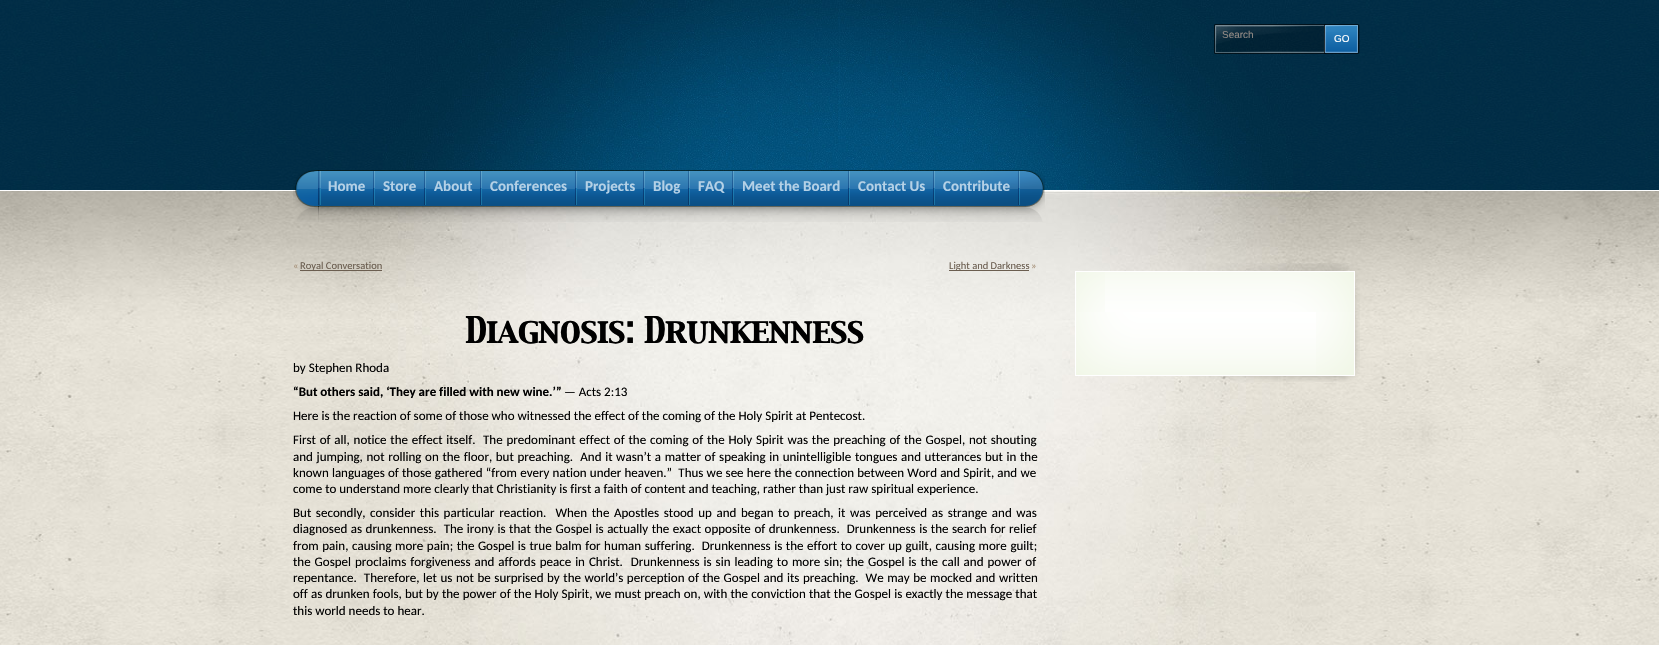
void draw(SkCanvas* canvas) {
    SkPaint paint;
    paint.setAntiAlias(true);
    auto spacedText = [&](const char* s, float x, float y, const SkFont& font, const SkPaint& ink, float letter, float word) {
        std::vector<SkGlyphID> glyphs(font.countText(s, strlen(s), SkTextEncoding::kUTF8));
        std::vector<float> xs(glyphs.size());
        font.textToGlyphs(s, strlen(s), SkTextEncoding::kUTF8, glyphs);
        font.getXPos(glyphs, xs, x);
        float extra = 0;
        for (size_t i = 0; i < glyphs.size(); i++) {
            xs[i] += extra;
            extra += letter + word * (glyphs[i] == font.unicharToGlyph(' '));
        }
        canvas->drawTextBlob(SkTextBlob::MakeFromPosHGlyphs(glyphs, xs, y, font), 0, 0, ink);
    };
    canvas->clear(0xFFFFFFFF);
    canvas->drawImageRect(SkImages::DeferredFromEncodedData(SkData::MakeFromFileName("img1.png")), SkRect::MakeXYWH(0, 0, 1659, 190), SkSamplingOptions());
    canvas->drawImageRect(SkImages::DeferredFromEncodedData(SkData::MakeFromFileName("img2.png")), SkRect::MakeXYWH(383, 0, 910, 190), SkSamplingOptions());
    canvas->drawImageRect(SkImages::DeferredFromEncodedData(SkData::MakeFromFileName("img3.png")), SkRect::MakeXYWH(1214, 24, 110, 30), SkSamplingOptions());
    canvas->drawImageRect(SkImages::DeferredFromEncodedData(SkData::MakeFromFileName("img4.png")), SkRect::MakeXYWH(1324, 24, 36, 30), SkSamplingOptions());
    SkFont font1(fontMgr->matchFamilyStyle("Liberation Sans", SkFontStyle::Normal()), 10);
    font1.setSubpixel(true);
    paint.setColor(0xFF928A85);
    canvas->drawString("Search", 1222, 38, font1, paint);
    paint.setColor(0xFFFFFFFF);
    canvas->drawString("GO", 1334, 42, font1, paint);
    canvas->drawImageRect(SkImages::DeferredFromEncodedData(SkData::MakeFromFileName("img10.png")), SkRect::MakeXYWH(0, 191, 1659, 200), SkSamplingOptions());
    canvas->drawImageRect(SkImages::DeferredFromEncodedData(SkData::MakeFromFileName("img5.png")), SkRect::MakeXYWH(293, 170, 26, 52), SkSamplingOptions());
    canvas->drawImageRect(SkImages::DeferredFromEncodedData(SkData::MakeFromFileName("img9.png")), SkRect::MakeXYWH(0, 391, 1659, 254), SkSamplingOptions());
    canvas->drawImageRect(SkImages::DeferredFromEncodedData(SkData::MakeFromFileName("img11.png")), SkRect::MakeXYWH(350, 191, 960, 454), SkSamplingOptions());
    canvas->drawImageRect(SkImages::DeferredFromEncodedData(SkData::MakeFromFileName("img6.png")), SkRect::MakeXYWH(318, 170, 727, 52), SkSamplingOptions());
    canvas->drawImageRect(SkImages::DeferredFromEncodedData(SkData::MakeFromFileName("img7.png")), SkRect::MakeXYWH(1018, 171, 2, 34), SkSamplingOptions());
    canvas->drawImageRect(SkImages::DeferredFromEncodedData(SkData::MakeFromFileName("img8.png")), SkRect::MakeXYWH(318, 171, 3, 34), SkSamplingOptions());
    SkFont font2(fontMgr->matchFamilyStyle("Carlito", SkFontStyle::Bold()), 15);
    font2.setSubpixel(true);
    paint.setColor(0xFFB5D1E6);
    canvas->drawString("Home", 328, 191, font2, paint);
    canvas->drawImageRect(SkImages::DeferredFromEncodedData(SkData::MakeFromFileName("img7.png")), SkRect::MakeXYWH(373, 171, 2, 34), SkSamplingOptions());
    canvas->drawString("Store", 383, 191, font2, paint);
    canvas->drawImageRect(SkImages::DeferredFromEncodedData(SkData::MakeFromFileName("img7.png")), SkRect::MakeXYWH(424, 171, 2, 34), SkSamplingOptions());
    canvas->drawString("About", 434, 191, font2, paint);
    canvas->drawImageRect(SkImages::DeferredFromEncodedData(SkData::MakeFromFileName("img7.png")), SkRect::MakeXYWH(480, 171, 2, 34), SkSamplingOptions());
    canvas->drawString("Conferences", 490, 191, font2, paint);
    canvas->drawImageRect(SkImages::DeferredFromEncodedData(SkData::MakeFromFileName("img7.png")), SkRect::MakeXYWH(575, 171, 2, 34), SkSamplingOptions());
    canvas->drawString("Projects", 585, 191, font2, paint);
    canvas->drawImageRect(SkImages::DeferredFromEncodedData(SkData::MakeFromFileName("img7.png")), SkRect::MakeXYWH(643, 171, 2, 34), SkSamplingOptions());
    canvas->drawString("Blog", 653, 191, font2, paint);
    canvas->drawImageRect(SkImages::DeferredFromEncodedData(SkData::MakeFromFileName("img7.png")), SkRect::MakeXYWH(688, 171, 2, 34), SkSamplingOptions());
    canvas->drawString("FAQ", 698, 191, font2, paint);
    canvas->drawImageRect(SkImages::DeferredFromEncodedData(SkData::MakeFromFileName("img7.png")), SkRect::MakeXYWH(732, 171, 2, 34), SkSamplingOptions());
    canvas->drawString("Meet the Board", 742, 191, font2, paint);
    canvas->drawImageRect(SkImages::DeferredFromEncodedData(SkData::MakeFromFileName("img7.png")), SkRect::MakeXYWH(848, 171, 2, 34), SkSamplingOptions());
    canvas->drawString("Contact Us", 858, 191, font2, paint);
    canvas->drawImageRect(SkImages::DeferredFromEncodedData(SkData::MakeFromFileName("img7.png")), SkRect::MakeXYWH(933, 171, 2, 34), SkSamplingOptions());
    canvas->drawString("Contribute", 943, 191, font2, paint);
    SkFont font3(fontMgr->matchFamilyStyle("Carlito", SkFontStyle::Normal()), 10.5f);
    font3.setSubpixel(true);
    paint.setColor(0xFFA8937B);
    canvas->drawString("«", 293, 269, font3, paint);
    paint.setColor(0xFF6B5E50);
    canvas->drawRect(SkRect::MakeXYWH(300, 270, 82, 1), paint);
    canvas->drawString("Royal Conversation", 300, 269, font3, paint);
    canvas->drawRect(SkRect::MakeXYWH(949, 270, 80, 1), paint);
    canvas->drawString("Light and Darkness", 949, 269, font3, paint);
    paint.setColor(0xFFA8937B);
    canvas->drawString("»", 1031, 269, font3, paint);
    SkFont font4(fontMgr->matchFamilyStyle("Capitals", SkFontStyle::Normal()), 32.5f);
    font4.setSubpixel(true);
    paint.setColor(0xFF000000);
    spacedText("Diagnosis: Drunkenness", 465, 343, font4, paint, -1.3f, 0);
    SkFont font5(fontMgr->matchFamilyStyle("Carlito", SkFontStyle::Normal()), 13);
    font5.setSubpixel(true);
    canvas->drawString("by Stephen Rhoda", 293, 372, font5, paint);
    SkFont font6(fontMgr->matchFamilyStyle("Carlito", SkFontStyle::Bold()), 13);
    font6.setSubpixel(true);
    canvas->drawString("“But others said, ‘They are filled with new wine.’”", 293, 396, font6, paint);
    canvas->drawString("— Acts 2:13", 564, 396, font5, paint);
    canvas->drawString("Here is the reaction of some of those who witnessed the effect of the coming of the Holy Spirit at Pentecost.", 293, 420, font5, paint);
    spacedText("First of all, notice the effect itself.  The predominant effect of the coming of the Holy Spirit was the preaching of the Gospel, not shouting", 293, 444, font5, paint, 0, 0.85f);
    spacedText("and jumping, not rolling on the floor, but preaching.  And it wasn’t a matter of speaking in unintelligible tongues and utterances but in the", 293, 461, font5, paint, 0, 0.7f);
    spacedText("known languages of those gathered “from every nation under heaven.”  Thus we see here the connection between Word and Spirit, and we", 293, 477, font5, paint, 0, 0.25f);
    canvas->drawString("come to understand more clearly that Christianity is first a faith of content and teaching, rather than just raw spiritual experience.", 293, 493, font5, paint);
    spacedText("But secondly, consider this particular reaction.  When the Apostles stood up and began to preach, it was perceived as strange and was", 293, 517, font5, paint, 0, 1.65f);
    spacedText("diagnosed as drunkenness.  The irony is that the Gospel is actually the exact opposite of drunkenness.  Drunkenness is the search for relief", 293, 533, font5, paint, 0, 0.6f);
    spacedText("from pain, causing more pain; the Gospel is true balm for human suffering.  Drunkenness is the effort to cover up guilt, causing more guilt;", 293, 550, font5, paint, 0, 0.6f);
    spacedText("the Gospel proclaims forgiveness and affords peace in Christ.  Drunkenness is sin leading to more sin; the Gospel is the call and power of", 293, 566, font5, paint, 0, 1);
    spacedText("repentance.  Therefore, let us not be surprised by the world’s perception of the Gospel and its preaching.  We may be mocked and written", 293, 582, font5, paint, 0, 0.6f);
    spacedText("off as drunken fools, but by the power of the Holy Spirit, we must preach on, with the conviction that the Gospel is exactly the message that", 293, 598, font5, paint, 0, 0.2f);
    canvas->drawString("this world needs to hear.", 293, 615, font5, paint);
    canvas->drawImageRect(SkImages::DeferredFromEncodedData(SkData::MakeFromFileName("img12.png")), SkRect::MakeXYWH(1189, 263, 171, 119), SkSamplingOptions());
    paint.setColor(0xFFFFFFFF);
    canvas->drawRect(SkRect::MakeXYWH(1075, 271, 280, 105), paint);
    canvas->drawImageRect(SkImages::DeferredFromEncodedData(SkData::MakeFromFileName("img13.png")), SkRect::MakeXYWH(1075, 271, 279, 64), SkSamplingOptions());
    canvas->drawImageRect(SkImages::DeferredFromEncodedData(SkData::MakeFromFileName("img14.png")), SkRect::MakeXYWH(1076, 312, 279, 64), SkSamplingOptions());
    canvas->drawImageRect(SkImages::DeferredFromEncodedData(SkData::MakeFromFileName("img15.png")), SkRect::MakeXYWH(1075, 272, 30, 40), SkSamplingOptions());
    canvas->drawImageRect(SkImages::DeferredFromEncodedData(SkData::MakeFromFileName("img16.png")), SkRect::MakeXYWH(1316, 312, 39, 63), SkSamplingOptions());
}
